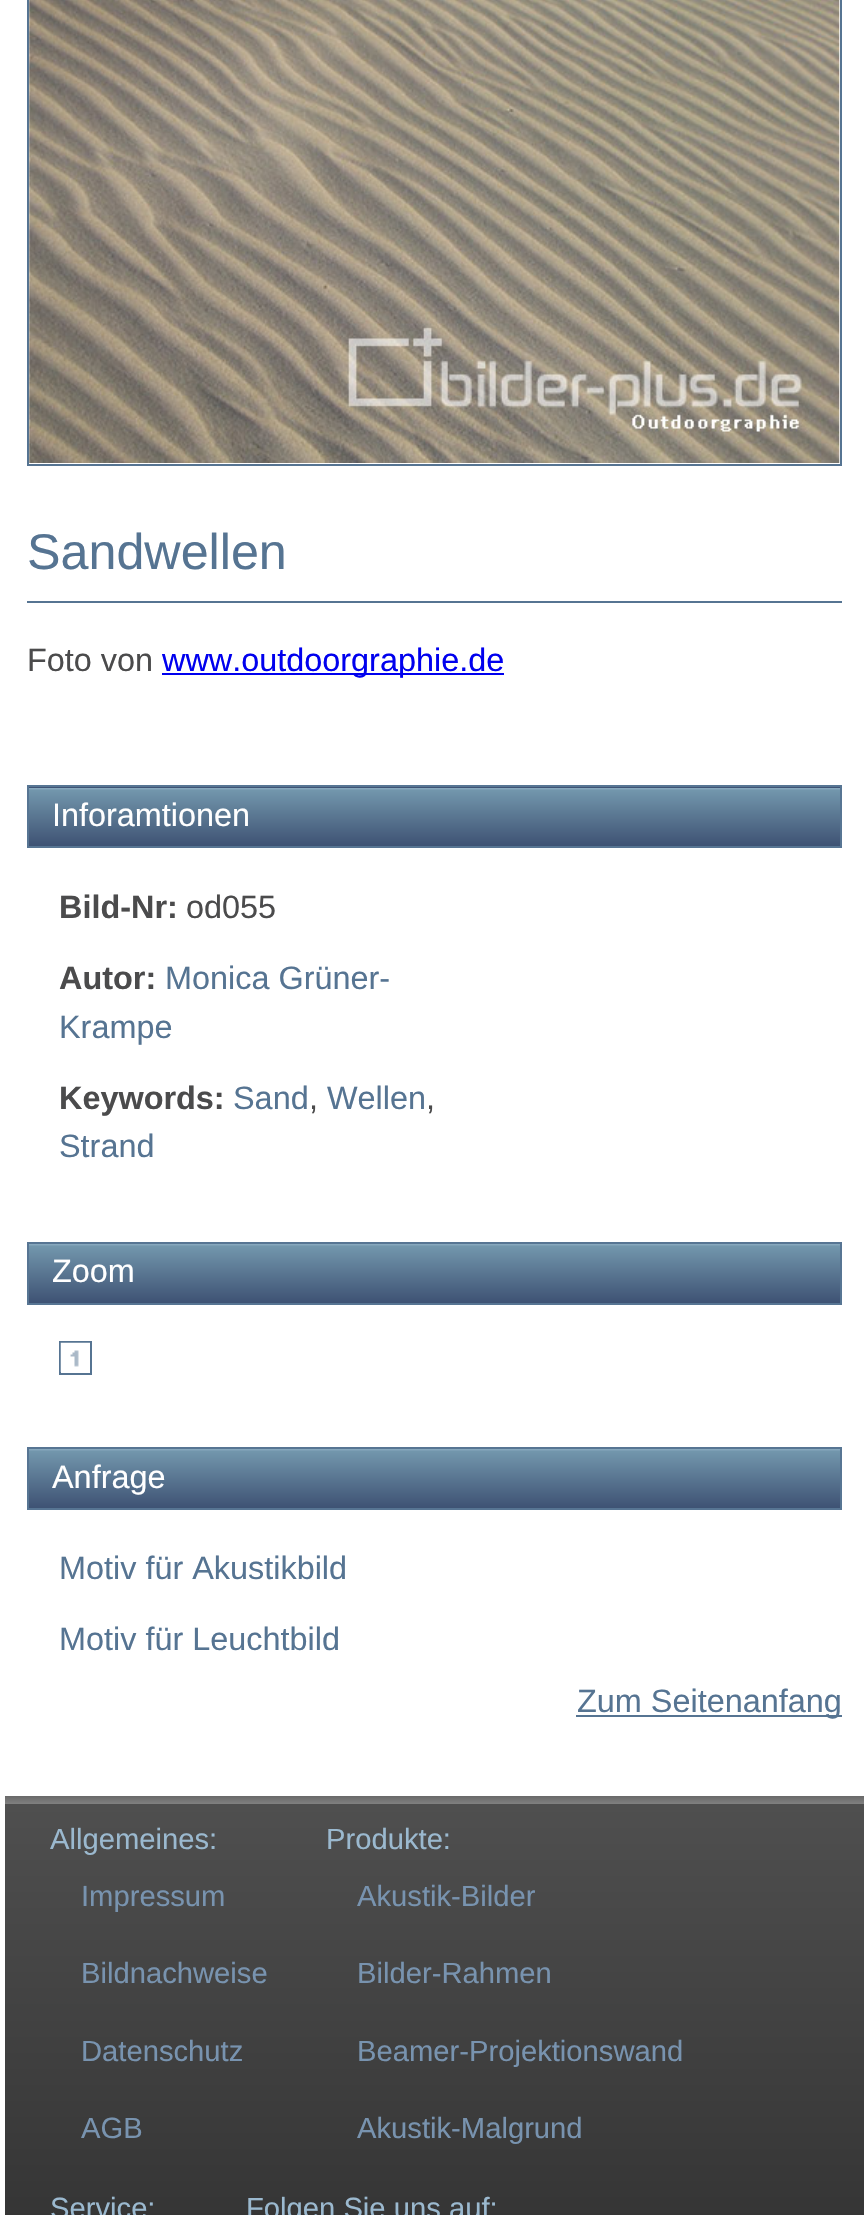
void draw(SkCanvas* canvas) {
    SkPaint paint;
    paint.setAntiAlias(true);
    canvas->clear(0xFFFFFFFF);
    paint.setStyle(SkPaint::kStroke_Style);
    paint.setStrokeWidth(2);
    paint.setColor(0xFF567492);
    canvas->drawRect(SkRect::MakeXYWH(28, -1, 813, 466), paint);
    canvas->drawImageRect(SkImages::DeferredFromEncodedData(SkData::MakeFromFileName("img1.png")), SkRect::MakeXYWH(29, 0, 811, 463), SkSamplingOptions());
    paint.setStyle(SkPaint::kFill_Style);
    canvas->drawRect(SkRect::MakeXYWH(27, 601, 815, 2), paint);
    SkFont font1(fontMgr->matchFamilyStyle("Liberation Sans", SkFontStyle::Normal()), 50.25f);
    font1.setSubpixel(true);
    canvas->drawString("Sandwellen", 27, 569, font1, paint);
    SkFont font2(fontMgr->matchFamilyStyle("Liberation Sans", SkFontStyle::Normal()), 32.4f);
    font2.setSubpixel(true);
    paint.setColor(0xFF4B4B4C);
    canvas->drawString("Foto von", 27, 671, font2, paint);
    paint.setColor(0xFF0000EE);
    canvas->drawRect(SkRect::MakeXYWH(162, 673, 342, 2), paint);
    canvas->drawString("www.outdoorgraphie.de", 162, 671, font2, paint);
    {
        const SkColor colors[] = {0xFF8DADC2, 0xFF7296AC, 0xFF3E5273};
        const float stops[] = {0, 0.04f, 1};
        const SkPoint ends[] = {{434, 729}, {434, 788}};
        paint.setShader(SkGradientShader::MakeLinear(ends, colors, stops, 3, SkTileMode::kClamp));
        paint.setAlpha(255);
    }
    canvas->drawRect(SkRect::MakeXYWH(27, 787, 815, 1), paint);
    {
        const SkColor colors[] = {0xFF8DADC2, 0xFF7296AC, 0xFF3E5273};
        const float stops[] = {0, 0.04f, 1};
        const SkPoint ends[] = {{434, 788}, {434, 846}};
        paint.setShader(SkGradientShader::MakeLinear(ends, colors, stops, 3, SkTileMode::kClamp));
        paint.setAlpha(255);
    }
    canvas->drawRect(SkRect::MakeXYWH(29, 788, 811, 58), paint);
    paint.setStyle(SkPaint::kStroke_Style);
    paint.setShader(nullptr);
    paint.setColor(0xFF577593);
    canvas->drawRect(SkRect::MakeXYWH(28, 786, 813, 61), paint);
    paint.setStyle(SkPaint::kFill_Style);
    paint.setColor(0xFFFFFFFF);
    canvas->drawString("Inforamtionen", 52, 826, font2, paint);
    SkFont font3(fontMgr->matchFamilyStyle("Liberation Sans", SkFontStyle::Bold()), 32.4f);
    font3.setSubpixel(true);
    paint.setColor(0xFF4B4B4C);
    canvas->drawString("Bild-Nr:", 59, 918, font3, paint);
    canvas->drawString("od055", 186, 918, font2, paint);
    canvas->drawString("Autor:", 59, 989, font3, paint);
    paint.setColor(0xFF567492);
    canvas->drawString("Monica Grüner-", 165, 989, font2, paint);
    canvas->drawString("Krampe", 59, 1038, font2, paint);
    paint.setColor(0xFF4B4B4C);
    canvas->drawString("Keywords:", 59, 1109, font3, paint);
    paint.setColor(0xFF567492);
    canvas->drawString("Sand", 233, 1109, font2, paint);
    paint.setColor(0xFF4B4B4C);
    canvas->drawString(",", 309, 1109, font2, paint);
    paint.setColor(0xFF567492);
    canvas->drawString("Wellen", 327, 1109, font2, paint);
    paint.setColor(0xFF4B4B4C);
    canvas->drawString(",", 426, 1109, font2, paint);
    paint.setColor(0xFF567492);
    canvas->drawString("Strand", 59, 1157, font2, paint);
    {
        const SkColor colors[] = {0xFF8DADC2, 0xFF7296AC, 0xFF3E5273};
        const float stops[] = {0, 0.04f, 1};
        const SkPoint ends[] = {{434, 1244}, {434, 1303}};
        paint.setShader(SkGradientShader::MakeLinear(ends, colors, stops, 3, SkTileMode::kClamp));
        paint.setAlpha(255);
    }
    canvas->drawRect(SkRect::MakeXYWH(29, 1244, 811, 59), paint);
    paint.setStyle(SkPaint::kStroke_Style);
    paint.setShader(nullptr);
    paint.setColor(0xFF577593);
    canvas->drawRect(SkRect::MakeXYWH(28, 1243, 813, 61), paint);
    paint.setStyle(SkPaint::kFill_Style);
    paint.setColor(0xFFFFFFFF);
    canvas->drawString("Zoom", 52, 1282, font2, paint);
    paint.setStyle(SkPaint::kStroke_Style);
    paint.setColor(0xFF567492);
    canvas->drawRect(SkRect::MakeXYWH(60, 1342, 31, 32), paint);
    canvas->drawImageRect(SkImages::DeferredFromEncodedData(SkData::MakeFromFileName("img2.png")), SkRect::MakeXYWH(60, 1342, 30, 30), SkSamplingOptions());
    paint.setStyle(SkPaint::kFill_Style);
    {
        const SkColor colors[] = {0xFF8DADC2, 0xFF7296AC, 0xFF3E5273};
        const float stops[] = {0, 0.04f, 1};
        const SkPoint ends[] = {{434, 1449}, {434, 1508}};
        paint.setShader(SkGradientShader::MakeLinear(ends, colors, stops, 3, SkTileMode::kClamp));
        paint.setAlpha(255);
    }
    canvas->drawRect(SkRect::MakeXYWH(29, 1449, 811, 59), paint);
    paint.setStyle(SkPaint::kStroke_Style);
    paint.setShader(nullptr);
    paint.setColor(0xFF577593);
    canvas->drawRect(SkRect::MakeXYWH(28, 1448, 813, 61), paint);
    paint.setStyle(SkPaint::kFill_Style);
    paint.setColor(0xFFFFFFFF);
    canvas->drawString("Anfrage", 52, 1488, font2, paint);
    paint.setColor(0xFF567492);
    canvas->drawString("Motiv für Akustikbild", 59, 1579, font2, paint);
    canvas->drawString("Motiv für Leuchtbild", 59, 1650, font2, paint);
    canvas->drawRect(SkRect::MakeXYWH(576, 1715, 266, 2), paint);
    canvas->drawString("Zum Seitenanfang", 577, 1712, font2, paint);
    {
        const SkColor colors[] = {0xFF696969, 0xFF808080, 0xFF4F4F4F, 0xFF1E1E1E};
        const float stops[] = {0, 0.01f, 0.01f, 1};
        const SkPoint ends[] = {{434, 1796}, {434, 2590}};
        paint.setShader(SkGradientShader::MakeLinear(ends, colors, stops, 4, SkTileMode::kClamp));
        paint.setAlpha(255);
    }
    canvas->drawRect(SkRect::MakeXYWH(5, 1796, 859, 419), paint);
    SkFont font4(fontMgr->matchFamilyStyle("Liberation Sans", SkFontStyle::Normal()), 29.2f);
    font4.setSubpixel(true);
    paint.setShader(nullptr);
    paint.setColor(0xFF9BB9CF);
    canvas->drawString("Allgemeines:", 50, 1849, font4, paint);
    paint.setColor(0xFF7893AF);
    canvas->drawString("Impressum", 81, 1906, font4, paint);
    canvas->drawString("Bildnachweise", 81, 1983, font4, paint);
    canvas->drawString("Datenschutz", 81, 2061, font4, paint);
    canvas->drawString("AGB", 81, 2138, font4, paint);
    paint.setColor(0xFF9BB9CF);
    canvas->drawString("Produkte:", 326, 1849, font4, paint);
    paint.setColor(0xFF7893AF);
    canvas->drawString("Akustik-Bilder", 357, 1906, font4, paint);
    canvas->drawString("Bilder-Rahmen", 357, 1983, font4, paint);
    canvas->drawString("Beamer-Projektionswand", 357, 2061, font4, paint);
    canvas->drawString("Akustik-Malgrund", 357, 2138, font4, paint);
    paint.setColor(0xFF9BB9CF);
    canvas->drawString("Service:", 50, 2218, font4, paint);
    canvas->drawString("Folgen Sie uns auf:", 246, 2218, font4, paint);
}
